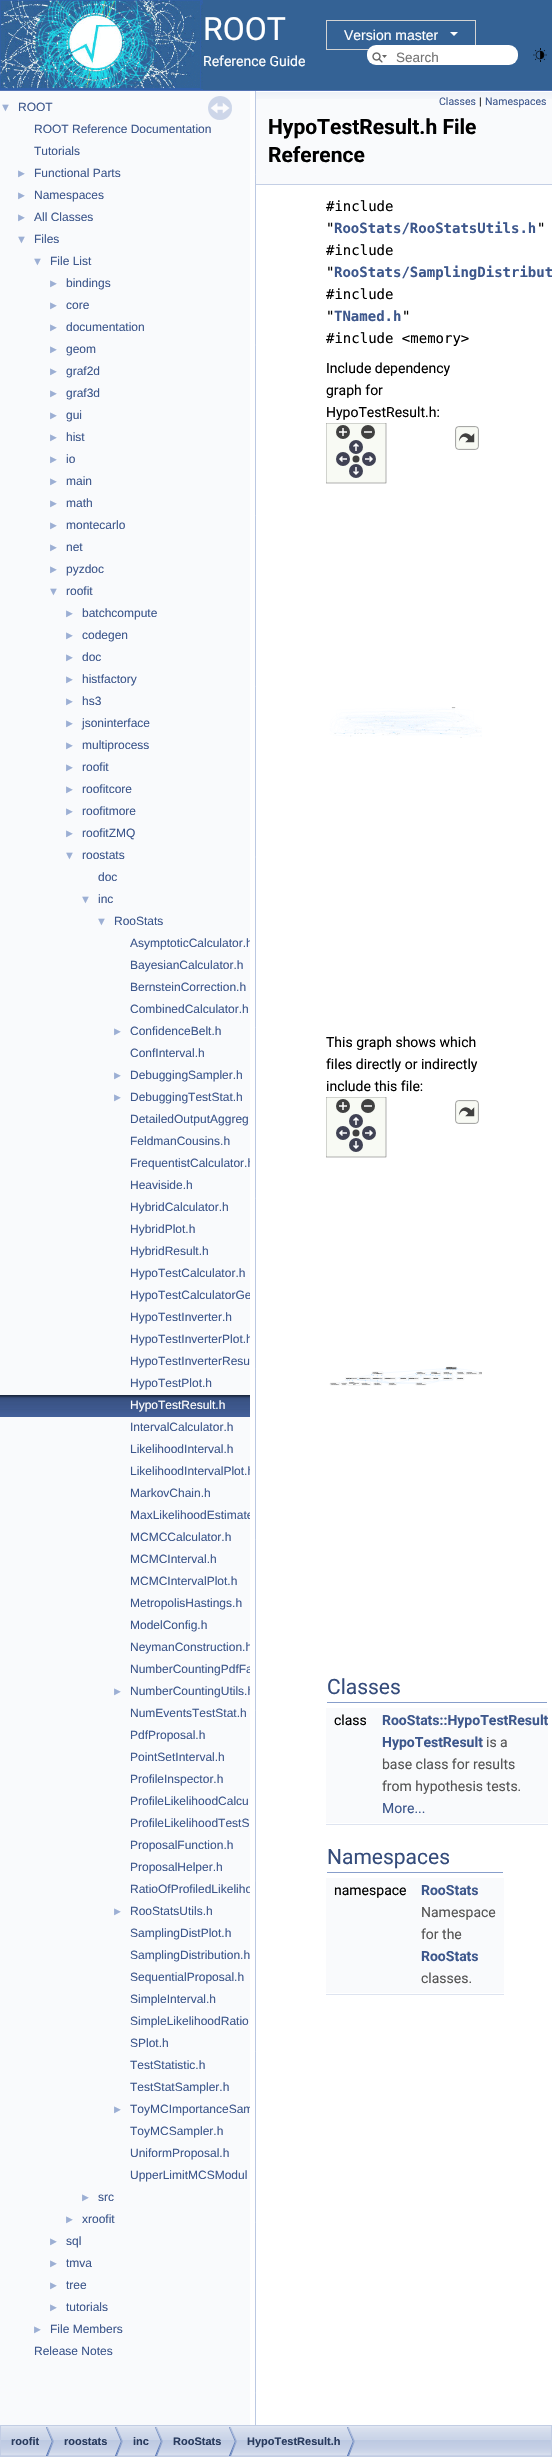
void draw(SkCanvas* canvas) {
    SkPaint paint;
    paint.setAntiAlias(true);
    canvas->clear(0xFFFFFFFF);
    paint.setColor(0xFF5373B4);
    canvas->drawRect(SkRect::MakeXYWH(0, 90, 552, 1), paint);
    paint.setColor(0xFF346295);
    canvas->drawRect(SkRect::MakeXYWH(203, 0, 349, 90), paint);
    canvas->drawImageRect(SkImages::DeferredFromEncodedData(SkData::MakeFromFileName("img1.png")), SkRect::MakeXYWH(0, 0, 203, 90), SkSamplingOptions());
    SkFont font1(fontMgr->matchFamilyStyle("Roboto", SkFontStyle::Normal()), 32);
    font1.setSubpixel(true);
    paint.setColor(0xFFFFFFFF);
    canvas->drawString("ROOT", 203, 40, font1, paint);
    paint.setStyle(SkPaint::kStroke_Style);
    paint.setStrokeWidth(1);
    paint.setColor(0xFFD3D3D3);
    canvas->drawRect(SkRect::MakeXYWH(326.5f, 20.5f, 149, 29), paint);
    SkFont font2(fontMgr->matchFamilyStyle("Liberation Sans", SkFontStyle::Normal()), 14);
    font2.setSubpixel(true);
    paint.setStyle(SkPaint::kFill_Style);
    paint.setColor(0xFFFFFFFF);
    canvas->drawString("Version master", 344, 40, font2, paint);
    canvas->drawPath(SkPathBuilder().moveTo(450, 32).lineTo(458, 32).lineTo(454, 36).close().detach(), paint);
    SkFont font3(fontMgr->matchFamilyStyle("Roboto", SkFontStyle::Normal()), 14);
    font3.setSubpixel(true);
    canvas->drawString("Reference Guide", 203, 66, font3, paint);
    canvas->drawRoundRect(SkRect::MakeXYWH(367, 45, 151, 20), 9, 9, paint);
    canvas->drawImageRect(SkImages::DeferredFromEncodedData(SkData::MakeFromFileName("img2.png")), SkRect::MakeXYWH(372, 52, 15, 11), SkSamplingOptions());
    SkFont font4(fontMgr->matchFamilyStyle("Liberation Sans", SkFontStyle::Normal()), 13.5f);
    font4.setSubpixel(true);
    paint.setColor(0xFF757575);
    canvas->drawString("Search", 396, 62, font4, paint);
    canvas->drawImageRect(SkImages::DeferredFromEncodedData(SkData::MakeFromFileName("img3.png")), SkRect::MakeXYWH(533, 48, 14, 14), SkSamplingOptions());
    paint.setColor(0xFFF9FAFC);
    canvas->drawRect(SkRect::MakeXYWH(0, 91, 250, 2334), paint);
    canvas->drawImageRect(SkImages::DeferredFromEncodedData(SkData::MakeFromFileName("img4.png")), SkRect::MakeXYWH(208, 96, 24, 24), SkSamplingOptions());
    SkFont font5(fontMgr->matchFamilyStyle("Liberation Sans", SkFontStyle::Normal()), 11);
    font5.setSubpixel(true);
    paint.setColor(0xFF9CAFD4);
    canvas->drawString("▼", 0, 111, font5, paint);
    SkFont font6(fontMgr->matchFamilyStyle("Liberation Sans", SkFontStyle::Normal()), 12);
    font6.setSubpixel(true);
    paint.setColor(0xFF3D578C);
    canvas->drawString("ROOT", 18, 111, font6, paint);
    canvas->drawString("ROOT Reference Documentation", 34, 133, font6, paint);
    canvas->drawString("Tutorials", 34, 155, font6, paint);
    paint.setColor(0xFF9CAFD4);
    canvas->drawString("►", 16, 177, font5, paint);
    paint.setColor(0xFF3D578C);
    canvas->drawString("Functional Parts", 34, 177, font6, paint);
    paint.setColor(0xFF9CAFD4);
    canvas->drawString("►", 16, 199, font5, paint);
    paint.setColor(0xFF3D578C);
    canvas->drawString("Namespaces", 34, 199, font6, paint);
    paint.setColor(0xFF9CAFD4);
    canvas->drawString("►", 16, 221, font5, paint);
    paint.setColor(0xFF3D578C);
    canvas->drawString("All Classes", 34, 221, font6, paint);
    paint.setColor(0xFF9CAFD4);
    canvas->drawString("▼", 16, 243, font5, paint);
    paint.setColor(0xFF3D578C);
    canvas->drawString("Files", 34, 243, font6, paint);
    paint.setColor(0xFF9CAFD4);
    canvas->drawString("▼", 32, 265, font5, paint);
    paint.setColor(0xFF3D578C);
    canvas->drawString("File List", 50, 265, font6, paint);
    paint.setColor(0xFF9CAFD4);
    canvas->drawString("►", 48, 287, font5, paint);
    paint.setColor(0xFF3D578C);
    canvas->drawString("bindings", 66, 287, font6, paint);
    paint.setColor(0xFF9CAFD4);
    canvas->drawString("►", 48, 309, font5, paint);
    paint.setColor(0xFF3D578C);
    canvas->drawString("core", 66, 309, font6, paint);
    paint.setColor(0xFF9CAFD4);
    canvas->drawString("►", 48, 331, font5, paint);
    paint.setColor(0xFF3D578C);
    canvas->drawString("documentation", 66, 331, font6, paint);
    paint.setColor(0xFF9CAFD4);
    canvas->drawString("►", 48, 353, font5, paint);
    paint.setColor(0xFF3D578C);
    canvas->drawString("geom", 66, 353, font6, paint);
    paint.setColor(0xFF9CAFD4);
    canvas->drawString("►", 48, 375, font5, paint);
    paint.setColor(0xFF3D578C);
    canvas->drawString("graf2d", 66, 375, font6, paint);
    paint.setColor(0xFF9CAFD4);
    canvas->drawString("►", 48, 397, font5, paint);
    paint.setColor(0xFF3D578C);
    canvas->drawString("graf3d", 66, 397, font6, paint);
    paint.setColor(0xFF9CAFD4);
    canvas->drawString("►", 48, 419, font5, paint);
    paint.setColor(0xFF3D578C);
    canvas->drawString("gui", 66, 419, font6, paint);
    paint.setColor(0xFF9CAFD4);
    canvas->drawString("►", 48, 441, font5, paint);
    paint.setColor(0xFF3D578C);
    canvas->drawString("hist", 66, 441, font6, paint);
    paint.setColor(0xFF9CAFD4);
    canvas->drawString("►", 48, 463, font5, paint);
    paint.setColor(0xFF3D578C);
    canvas->drawString("io", 66, 463, font6, paint);
    paint.setColor(0xFF9CAFD4);
    canvas->drawString("►", 48, 485, font5, paint);
    paint.setColor(0xFF3D578C);
    canvas->drawString("main", 66, 485, font6, paint);
    paint.setColor(0xFF9CAFD4);
    canvas->drawString("►", 48, 507, font5, paint);
    paint.setColor(0xFF3D578C);
    canvas->drawString("math", 66, 507, font6, paint);
    paint.setColor(0xFF9CAFD4);
    canvas->drawString("►", 48, 529, font5, paint);
    paint.setColor(0xFF3D578C);
    canvas->drawString("montecarlo", 66, 529, font6, paint);
    paint.setColor(0xFF9CAFD4);
    canvas->drawString("►", 48, 551, font5, paint);
    paint.setColor(0xFF3D578C);
    canvas->drawString("net", 66, 551, font6, paint);
    paint.setColor(0xFF9CAFD4);
    canvas->drawString("►", 48, 573, font5, paint);
    paint.setColor(0xFF3D578C);
    canvas->drawString("pyzdoc", 66, 573, font6, paint);
    paint.setColor(0xFF9CAFD4);
    canvas->drawString("▼", 48, 595, font5, paint);
    paint.setColor(0xFF3D578C);
    canvas->drawString("roofit", 66, 595, font6, paint);
    paint.setColor(0xFF9CAFD4);
    canvas->drawString("►", 64, 617, font5, paint);
    paint.setColor(0xFF3D578C);
    canvas->drawString("batchcompute", 82, 617, font6, paint);
    paint.setColor(0xFF9CAFD4);
    canvas->drawString("►", 64, 639, font5, paint);
    paint.setColor(0xFF3D578C);
    canvas->drawString("codegen", 82, 639, font6, paint);
    paint.setColor(0xFF9CAFD4);
    canvas->drawString("►", 64, 661, font5, paint);
    paint.setColor(0xFF3D578C);
    canvas->drawString("doc", 82, 661, font6, paint);
    paint.setColor(0xFF9CAFD4);
    canvas->drawString("►", 64, 683, font5, paint);
    paint.setColor(0xFF3D578C);
    canvas->drawString("histfactory", 82, 683, font6, paint);
    paint.setColor(0xFF9CAFD4);
    canvas->drawString("►", 64, 705, font5, paint);
    paint.setColor(0xFF3D578C);
    canvas->drawString("hs3", 82, 705, font6, paint);
    paint.setColor(0xFF9CAFD4);
    canvas->drawString("►", 64, 727, font5, paint);
    paint.setColor(0xFF3D578C);
    canvas->drawString("jsoninterface", 82, 727, font6, paint);
    paint.setColor(0xFF9CAFD4);
    canvas->drawString("►", 64, 749, font5, paint);
    paint.setColor(0xFF3D578C);
    canvas->drawString("multiprocess", 82, 749, font6, paint);
    paint.setColor(0xFF9CAFD4);
    canvas->drawString("►", 64, 771, font5, paint);
    paint.setColor(0xFF3D578C);
    canvas->drawString("roofit", 82, 771, font6, paint);
    paint.setColor(0xFF9CAFD4);
    canvas->drawString("►", 64, 793, font5, paint);
    paint.setColor(0xFF3D578C);
    canvas->drawString("roofitcore", 82, 793, font6, paint);
    paint.setColor(0xFF9CAFD4);
    canvas->drawString("►", 64, 815, font5, paint);
    paint.setColor(0xFF3D578C);
    canvas->drawString("roofitmore", 82, 815, font6, paint);
    paint.setColor(0xFF9CAFD4);
    canvas->drawString("►", 64, 837, font5, paint);
    paint.setColor(0xFF3D578C);
    canvas->drawString("roofitZMQ", 82, 837, font6, paint);
    paint.setColor(0xFF9CAFD4);
    canvas->drawString("▼", 64, 859, font5, paint);
    paint.setColor(0xFF3D578C);
    canvas->drawString("roostats", 82, 859, font6, paint);
    canvas->drawString("doc", 98, 881, font6, paint);
    paint.setColor(0xFF9CAFD4);
    canvas->drawString("▼", 80, 903, font5, paint);
    paint.setColor(0xFF3D578C);
    canvas->drawString("inc", 98, 903, font6, paint);
    paint.setColor(0xFF9CAFD4);
    canvas->drawString("▼", 96, 925, font5, paint);
    paint.setColor(0xFF3D578C);
    canvas->drawString("RooStats", 114, 925, font6, paint);
    canvas->save();
    canvas->clipRect(SkRect::MakeXYWH(0, 91, 250, 2334));
    canvas->drawString("AsymptoticCalculator.h", 130, 947, font6, paint);
    canvas->restore();
    canvas->drawString("BayesianCalculator.h", 130, 969, font6, paint);
    canvas->drawString("BernsteinCorrection.h", 130, 991, font6, paint);
    canvas->drawString("CombinedCalculator.h", 130, 1013, font6, paint);
    paint.setColor(0xFF9CAFD4);
    canvas->drawString("►", 112, 1035, font5, paint);
    paint.setColor(0xFF3D578C);
    canvas->drawString("ConfidenceBelt.h", 130, 1035, font6, paint);
    canvas->drawString("ConfInterval.h", 130, 1057, font6, paint);
    paint.setColor(0xFF9CAFD4);
    canvas->drawString("►", 112, 1079, font5, paint);
    paint.setColor(0xFF3D578C);
    canvas->drawString("DebuggingSampler.h", 130, 1079, font6, paint);
    paint.setColor(0xFF9CAFD4);
    canvas->drawString("►", 112, 1101, font5, paint);
    paint.setColor(0xFF3D578C);
    canvas->drawString("DebuggingTestStat.h", 130, 1101, font6, paint);
    canvas->drawString("DetailedOutputAggreg", 130, 1123, font6, paint);
    canvas->drawString("FeldmanCousins.h", 130, 1145, font6, paint);
    canvas->save();
    canvas->clipRect(SkRect::MakeXYWH(0, 91, 250, 2334));
    canvas->drawString("FrequentistCalculator.h", 130, 1167, font6, paint);
    canvas->restore();
    canvas->drawString("Heaviside.h", 130, 1189, font6, paint);
    canvas->drawString("HybridCalculator.h", 130, 1211, font6, paint);
    canvas->drawString("HybridPlot.h", 130, 1233, font6, paint);
    canvas->drawString("HybridResult.h", 130, 1255, font6, paint);
    canvas->drawString("HypoTestCalculator.h", 130, 1277, font6, paint);
    canvas->save();
    canvas->clipRect(SkRect::MakeXYWH(0, 91, 250, 2334));
    canvas->drawString("HypoTestCalculatorGe", 130, 1299, font6, paint);
    canvas->restore();
    canvas->drawString("HypoTestInverter.h", 130, 1321, font6, paint);
    canvas->save();
    canvas->clipRect(SkRect::MakeXYWH(0, 91, 250, 2334));
    canvas->drawString("HypoTestInverterPlot.h", 130, 1343, font6, paint);
    canvas->restore();
    canvas->drawString("HypoTestInverterResu", 130, 1365, font6, paint);
    canvas->drawString("HypoTestPlot.h", 130, 1387, font6, paint);
    canvas->drawImageRect(SkImages::DeferredFromEncodedData(SkData::MakeFromFileName("img5.png")), SkRect::MakeXYWH(0, 1395, 250, 22), SkSamplingOptions());
    paint.setColor(0xFFFFFFFF);
    canvas->drawString("HypoTestResult.h", 130, 1409, font6, paint);
    paint.setColor(0xFF3D578C);
    canvas->drawString("IntervalCalculator.h", 130, 1431, font6, paint);
    canvas->drawString("LikelihoodInterval.h", 130, 1453, font6, paint);
    canvas->save();
    canvas->clipRect(SkRect::MakeXYWH(0, 91, 250, 2334));
    canvas->drawString("LikelihoodIntervalPlot.h", 130, 1475, font6, paint);
    canvas->restore();
    canvas->drawString("MarkovChain.h", 130, 1497, font6, paint);
    canvas->save();
    canvas->clipRect(SkRect::MakeXYWH(0, 91, 250, 2334));
    canvas->drawString("MaxLikelihoodEstimate", 130, 1519, font6, paint);
    canvas->restore();
    canvas->drawString("MCMCCalculator.h", 130, 1541, font6, paint);
    canvas->drawString("MCMCInterval.h", 130, 1563, font6, paint);
    canvas->drawString("MCMCIntervalPlot.h", 130, 1585, font6, paint);
    canvas->drawString("MetropolisHastings.h", 130, 1607, font6, paint);
    canvas->drawString("ModelConfig.h", 130, 1629, font6, paint);
    canvas->save();
    canvas->clipRect(SkRect::MakeXYWH(0, 91, 250, 2334));
    canvas->drawString("NeymanConstruction.h", 130, 1651, font6, paint);
    canvas->drawString("NumberCountingPdfFa", 130, 1673, font6, paint);
    canvas->restore();
    paint.setColor(0xFF9CAFD4);
    canvas->drawString("►", 112, 1695, font5, paint);
    canvas->save();
    canvas->clipRect(SkRect::MakeXYWH(0, 91, 250, 2334));
    paint.setColor(0xFF3D578C);
    canvas->drawString("NumberCountingUtils.h", 130, 1695, font6, paint);
    canvas->restore();
    canvas->drawString("NumEventsTestStat.h", 130, 1717, font6, paint);
    canvas->drawString("PdfProposal.h", 130, 1739, font6, paint);
    canvas->drawString("PointSetInterval.h", 130, 1761, font6, paint);
    canvas->drawString("ProfileInspector.h", 130, 1783, font6, paint);
    canvas->drawString("ProfileLikelihoodCalcu", 130, 1805, font6, paint);
    canvas->drawString("ProfileLikelihoodTestS", 130, 1827, font6, paint);
    canvas->drawString("ProposalFunction.h", 130, 1849, font6, paint);
    canvas->drawString("ProposalHelper.h", 130, 1871, font6, paint);
    canvas->save();
    canvas->clipRect(SkRect::MakeXYWH(0, 91, 250, 2334));
    canvas->drawString("RatioOfProfiledLikeliho", 130, 1893, font6, paint);
    canvas->restore();
    paint.setColor(0xFF9CAFD4);
    canvas->drawString("►", 112, 1915, font5, paint);
    paint.setColor(0xFF3D578C);
    canvas->drawString("RooStatsUtils.h", 130, 1915, font6, paint);
    canvas->drawString("SamplingDistPlot.h", 130, 1937, font6, paint);
    canvas->drawString("SamplingDistribution.h", 130, 1959, font6, paint);
    canvas->drawString("SequentialProposal.h", 130, 1981, font6, paint);
    canvas->drawString("SimpleInterval.h", 130, 2003, font6, paint);
    canvas->drawString("SimpleLikelihoodRatio", 130, 2025, font6, paint);
    canvas->drawString("SPlot.h", 130, 2047, font6, paint);
    canvas->drawString("TestStatistic.h", 130, 2069, font6, paint);
    canvas->drawString("TestStatSampler.h", 130, 2091, font6, paint);
    paint.setColor(0xFF9CAFD4);
    canvas->drawString("►", 112, 2113, font5, paint);
    canvas->save();
    canvas->clipRect(SkRect::MakeXYWH(0, 91, 250, 2334));
    paint.setColor(0xFF3D578C);
    canvas->drawString("ToyMCImportanceSam", 130, 2113, font6, paint);
    canvas->restore();
    canvas->drawString("ToyMCSampler.h", 130, 2135, font6, paint);
    canvas->drawString("UniformProposal.h", 130, 2157, font6, paint);
    canvas->drawString("UpperLimitMCSModul", 130, 2179, font6, paint);
    paint.setColor(0xFF9CAFD4);
    canvas->drawString("►", 80, 2201, font5, paint);
    paint.setColor(0xFF3D578C);
    canvas->drawString("src", 98, 2201, font6, paint);
    paint.setColor(0xFF9CAFD4);
    canvas->drawString("►", 64, 2223, font5, paint);
    paint.setColor(0xFF3D578C);
    canvas->drawString("xroofit", 82, 2223, font6, paint);
    paint.setColor(0xFF9CAFD4);
    canvas->drawString("►", 48, 2245, font5, paint);
    paint.setColor(0xFF3D578C);
    canvas->drawString("sql", 66, 2245, font6, paint);
    paint.setColor(0xFF9CAFD4);
    canvas->drawString("►", 48, 2267, font5, paint);
    paint.setColor(0xFF3D578C);
    canvas->drawString("tmva", 66, 2267, font6, paint);
    paint.setColor(0xFF9CAFD4);
    canvas->drawString("►", 48, 2289, font5, paint);
    paint.setColor(0xFF3D578C);
    canvas->drawString("tree", 66, 2289, font6, paint);
    paint.setColor(0xFF9CAFD4);
    canvas->drawString("►", 48, 2311, font5, paint);
    paint.setColor(0xFF3D578C);
    canvas->drawString("tutorials", 66, 2311, font6, paint);
    paint.setColor(0xFF9CAFD4);
    canvas->drawString("►", 32, 2333, font5, paint);
    paint.setColor(0xFF3D578C);
    canvas->drawString("File Members", 50, 2333, font6, paint);
    canvas->drawString("Release Notes", 34, 2355, font6, paint);
    canvas->drawImageRect(SkImages::DeferredFromEncodedData(SkData::MakeFromFileName("img6.png")), SkRect::MakeXYWH(255, 91, 1, 2334), SkSamplingOptions());
    paint.setColor(0xFFF9FAFC);
    canvas->drawRect(SkRect::MakeXYWH(256, 99, 296, 85), paint);
    canvas->drawImageRect(SkImages::DeferredFromEncodedData(SkData::MakeFromFileName("img7.png")), SkRect::MakeXYWH(256, 91, 296, 8), SkSamplingOptions());
    paint.setColor(0xFFC4CFE5);
    canvas->drawRect(SkRect::MakeXYWH(256, 184, 296, 1), paint);
    SkFont font7(fontMgr->matchFamilyStyle("Roboto", SkFontStyle::Normal()), 10.5f);
    font7.setSubpixel(true);
    paint.setColor(0xFF3D578C);
    canvas->drawString("Classes", 439, 105, font7, paint);
    paint.setColor(0xFF000000);
    canvas->drawString("|", 479, 105, font7, paint);
    paint.setColor(0xFF3D578C);
    canvas->drawString("Namespaces", 485, 105, font7, paint);
    SkFont font8(fontMgr->matchFamilyStyle("Roboto", SkFontStyle::Bold()), 21);
    font8.setSubpixel(true);
    paint.setColor(0xFF000000);
    canvas->drawString("HypoTestResult.h File", 268, 134, font8, paint);
    canvas->drawString("Reference", 268, 162, font8, paint);
    SkFont font9(fontMgr->matchFamilyStyle("DejaVu Sans Mono", SkFontStyle::Normal()), 14);
    font9.setSubpixel(true);
    canvas->drawString("#include", 326, 211, font9, paint);
    canvas->drawString("\"", 326, 233, font9, paint);
    SkFont font10(fontMgr->matchFamilyStyle("DejaVu Sans Mono", SkFontStyle::Bold()), 14);
    font10.setSubpixel(true);
    paint.setColor(0xFF3D578C);
    canvas->drawString("RooStats/RooStatsUtils.h", 334, 233, font10, paint);
    paint.setColor(0xFF000000);
    canvas->drawString("\"", 537, 233, font9, paint);
    canvas->drawString("#include", 326, 255, font9, paint);
    canvas->drawString("\"", 326, 277, font9, paint);
    paint.setColor(0xFF3D578C);
    canvas->drawString("RooStats/SamplingDistribut", 334, 277, font10, paint);
    paint.setColor(0xFF000000);
    canvas->drawString("#include", 326, 299, font9, paint);
    canvas->drawString("\"", 326, 321, font9, paint);
    paint.setColor(0xFF3D578C);
    canvas->drawString("TNamed.h", 334, 321, font10, paint);
    paint.setColor(0xFF000000);
    canvas->drawString("\"", 402, 321, font9, paint);
    canvas->drawString("#include <memory>", 326, 343, font9, paint);
    canvas->drawString("Include dependency", 326, 373, font3, paint);
    canvas->drawString("graph for", 326, 395, font3, paint);
    canvas->drawString("HypoTestResult.h:", 326, 417, font3, paint);
    canvas->drawImageRect(SkImages::DeferredFromEncodedData(SkData::MakeFromFileName("img8.png")), SkRect::MakeXYWH(326, 423, 156, 315), SkSamplingOptions());
    canvas->drawString("This graph shows which", 326, 1047, font3, paint);
    canvas->drawString("files directly or indirectly", 326, 1069, font3, paint);
    canvas->drawString("include this file:", 326, 1091, font3, paint);
    canvas->drawImageRect(SkImages::DeferredFromEncodedData(SkData::MakeFromFileName("img9.png")), SkRect::MakeXYWH(326, 1097, 156, 289), SkSamplingOptions());
    paint.setColor(0xFF879ECB);
    canvas->drawRect(SkRect::MakeXYWH(327, 1702, 220, 1), paint);
    SkFont font11(fontMgr->matchFamilyStyle("Roboto", SkFontStyle::Normal()), 21);
    font11.setSubpixel(true);
    paint.setColor(0xFF354C7B);
    canvas->drawString("Classes", 327, 1694, font11, paint);
    paint.setColor(0xFFF9FAFC);
    canvas->drawRect(SkRect::MakeXYWH(326, 1708, 222, 23), paint);
    paint.setColor(0xFF000000);
    canvas->drawString("class", 334, 1725, font3, paint);
    SkFont font12(fontMgr->matchFamilyStyle("Roboto", SkFontStyle::Bold()), 14);
    font12.setSubpixel(true);
    paint.setColor(0xFF3D578C);
    canvas->drawString("RooStats::HypoTestResult", 382, 1725, font12, paint);
    paint.setColor(0xFFF9FAFC);
    canvas->drawRect(SkRect::MakeXYWH(326, 1731, 222, 92), paint);
    paint.setColor(0xFF3D578C);
    canvas->drawString("HypoTestResult", 382, 1747, font12, paint);
    paint.setColor(0xFF555555);
    canvas->drawString("is a", 486, 1747, font3, paint);
    canvas->drawString("base class for results", 382, 1769, font3, paint);
    canvas->drawString("from hypothesis tests.", 382, 1791, font3, paint);
    paint.setColor(0xFF3D578C);
    canvas->drawString("More...", 382, 1813, font3, paint);
    paint.setColor(0xFFDEE4F0);
    canvas->drawRect(SkRect::MakeXYWH(326, 1824, 222, 1), paint);
    paint.setColor(0xFF879ECB);
    canvas->drawRect(SkRect::MakeXYWH(327, 1872, 176, 1), paint);
    paint.setColor(0xFF354C7B);
    canvas->drawString("Namespaces", 327, 1864, font11, paint);
    paint.setColor(0xFFF9FAFC);
    canvas->drawRect(SkRect::MakeXYWH(326, 1878, 178, 23), paint);
    paint.setColor(0xFF000000);
    canvas->drawString("namespace", 334, 1895, font3, paint);
    paint.setColor(0xFF3D578C);
    canvas->drawString("RooStats", 421, 1895, font12, paint);
    paint.setColor(0xFFF9FAFC);
    canvas->drawRect(SkRect::MakeXYWH(326, 1901, 178, 92), paint);
    paint.setColor(0xFF555555);
    canvas->drawString("Namespace", 421, 1917, font3, paint);
    canvas->drawString("for the", 421, 1939, font3, paint);
    paint.setColor(0xFF3D578C);
    canvas->drawString("RooStats", 421, 1961, font12, paint);
    paint.setColor(0xFF555555);
    canvas->drawString("classes.", 421, 1983, font3, paint);
    paint.setColor(0xFFDEE4F0);
    canvas->drawRect(SkRect::MakeXYWH(326, 1994, 178, 1), paint);
    canvas->drawImageRect(SkImages::DeferredFromEncodedData(SkData::MakeFromFileName("img10.png")), SkRect::MakeXYWH(1, 2426, 550, 30), SkSamplingOptions());
    paint.setStyle(SkPaint::kStroke_Style);
    paint.setColor(0xFFC2CDE4);
    canvas->drawRect(SkRect::MakeXYWH(0.5f, 2425.5f, 551, 31), paint);
    canvas->drawImageRect(SkImages::DeferredFromEncodedData(SkData::MakeFromFileName("img11.png")), SkRect::MakeXYWH(46, 2427, 8, 29), SkSamplingOptions());
    SkFont font13(fontMgr->matchFamilyStyle("Liberation Sans", SkFontStyle::Bold()), 11);
    font13.setSubpixel(true);
    paint.setStyle(SkPaint::kFill_Style);
    paint.setColor(0xFF283A5D);
    canvas->drawString("roofit", 11, 2445, font13, paint);
    canvas->drawImageRect(SkImages::DeferredFromEncodedData(SkData::MakeFromFileName("img11.png")), SkRect::MakeXYWH(115, 2427, 8, 29), SkSamplingOptions());
    canvas->drawString("roostats", 64, 2445, font13, paint);
    canvas->drawImageRect(SkImages::DeferredFromEncodedData(SkData::MakeFromFileName("img11.png")), SkRect::MakeXYWH(155, 2427, 8, 29), SkSamplingOptions());
    canvas->drawString("inc", 133, 2445, font13, paint);
    canvas->drawImageRect(SkImages::DeferredFromEncodedData(SkData::MakeFromFileName("img11.png")), SkRect::MakeXYWH(229, 2427, 8, 29), SkSamplingOptions());
    canvas->drawString("RooStats", 173, 2445, font13, paint);
    canvas->drawImageRect(SkImages::DeferredFromEncodedData(SkData::MakeFromFileName("img11.png")), SkRect::MakeXYWH(347, 2427, 8, 29), SkSamplingOptions());
    canvas->drawString("HypoTestResult.h", 247, 2445, font13, paint);
}
